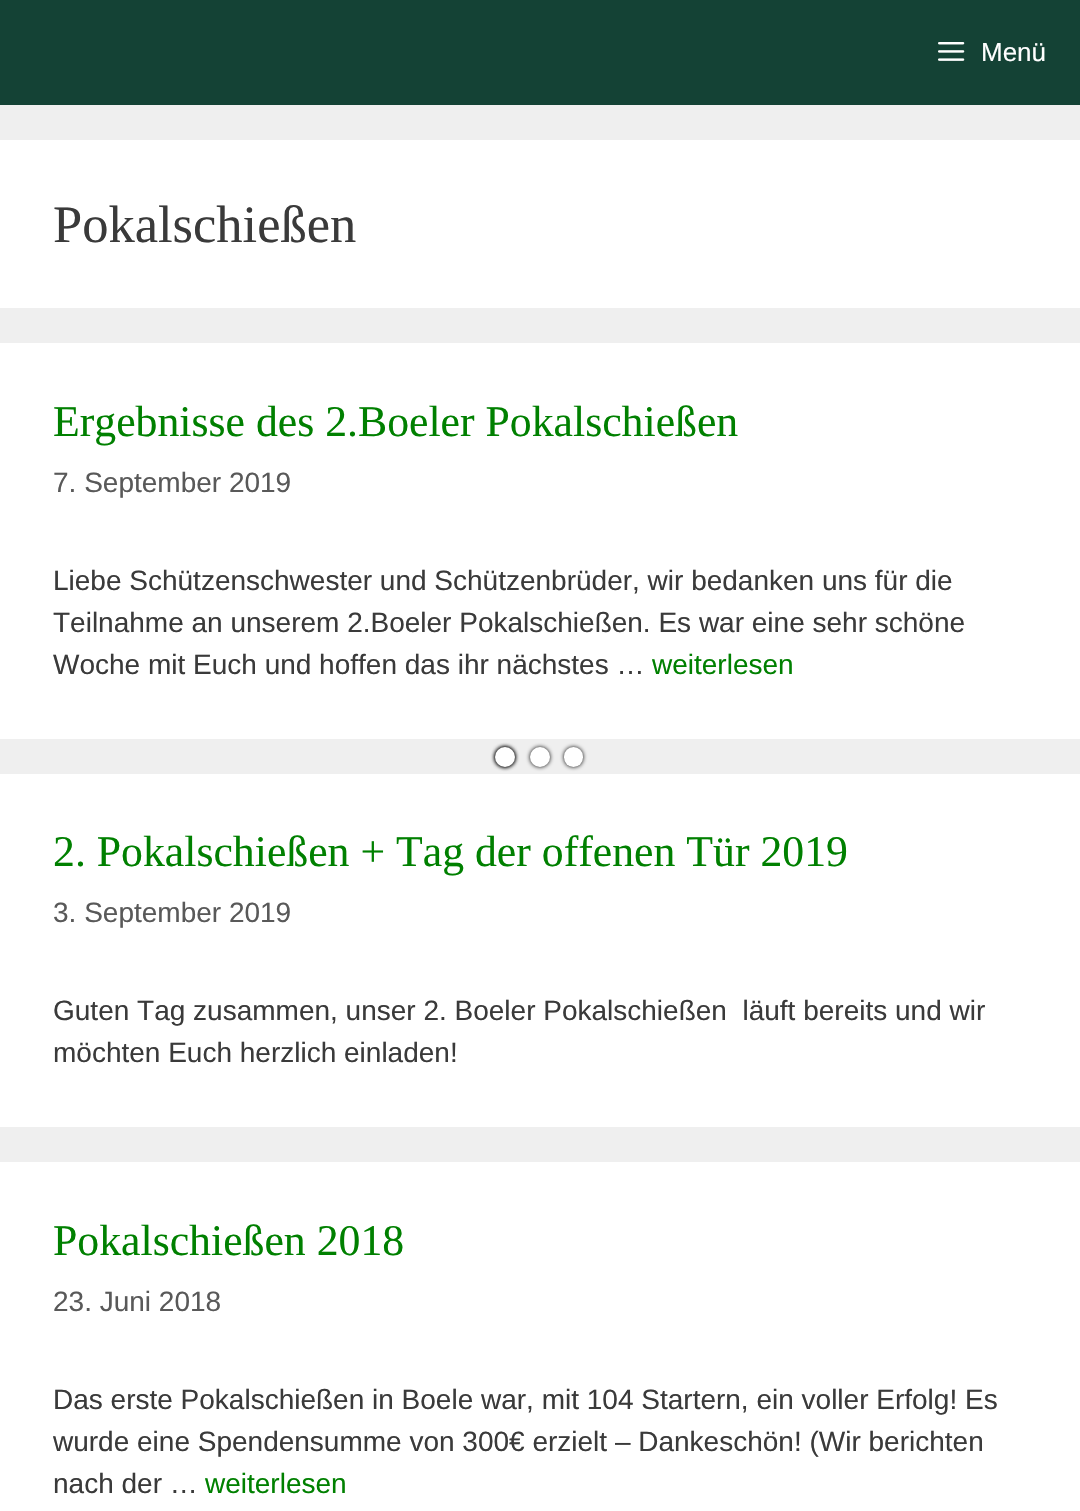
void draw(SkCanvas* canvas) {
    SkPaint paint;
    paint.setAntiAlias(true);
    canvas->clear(0xFFEFEFEF);
    paint.setColor(0xFF144235);
    canvas->drawRect(SkRect::MakeXYWH(0, 0, 1080, 105), paint);
    canvas->drawImageRect(SkImages::DeferredFromEncodedData(SkData::MakeFromFileName("img1.png")), SkRect::MakeXYWH(938, 42, 27, 19), SkSamplingOptions());
    SkFont font1(fontMgr->matchFamilyStyle("Liberation Sans", SkFontStyle::Normal()), 26);
    font1.setSubpixel(true);
    paint.setColor(0xFFFFFFFF);
    canvas->drawString("Menü", 981, 61, font1, paint);
    canvas->drawRect(SkRect::MakeXYWH(0, 140, 1080, 168), paint);
    SkFont font2(fontMgr->matchFamilyStyle("Liberation Serif", SkFontStyle::Normal()), 52.5f);
    font2.setSubpixel(true);
    paint.setColor(0xFF3A3A3A);
    canvas->drawString("Pokalschießen", 53, 242, font2, paint);
    paint.setColor(0xFFFFFFFF);
    canvas->drawRect(SkRect::MakeXYWH(0, 343, 1080, 396), paint);
    SkFont font3(fontMgr->matchFamilyStyle("Liberation Serif", SkFontStyle::Normal()), 43.75f);
    font3.setSubpixel(true);
    paint.setColor(0xFF008000);
    canvas->drawString("Ergebnisse des 2.Boeler Pokalschießen", 53, 436, font3, paint);
    SkFont font4(fontMgr->matchFamilyStyle("Liberation Sans", SkFontStyle::Normal()), 28);
    font4.setSubpixel(true);
    paint.setColor(0xFF595959);
    canvas->drawString("7. September 2019", 53, 492, font4, paint);
    paint.setColor(0xFF3A3A3A);
    canvas->drawString("Liebe Schützenschwester und Schützenbrüder, wir bedanken uns für die", 53, 590, font4, paint);
    canvas->drawString("Teilnahme an unserem 2.Boeler Pokalschießen. Es war eine sehr schöne", 53, 632, font4, paint);
    canvas->drawString("Woche mit Euch und hoffen das ihr nächstes …", 53, 674, font4, paint);
    paint.setColor(0xFF008000);
    canvas->drawString("weiterlesen", 652, 674, font4, paint);
    paint.setColor(0xFFFFFFFF);
    canvas->drawRect(SkRect::MakeXYWH(0, 774, 1080, 353), paint);
    paint.setColor(0xFF008000);
    canvas->drawString("2. Pokalschießen + Tag der offenen Tür 2019", 53, 866, font3, paint);
    paint.setColor(0xFF595959);
    canvas->drawString("3. September 2019", 53, 922, font4, paint);
    paint.setColor(0xFF3A3A3A);
    canvas->drawString("Guten Tag zusammen, unser 2. Boeler Pokalschießen  läuft bereits und wir", 53, 1020, font4, paint);
    canvas->drawString("möchten Euch herzlich einladen!", 53, 1062, font4, paint);
    paint.setColor(0xFFFFFFFF);
    canvas->drawRect(SkRect::MakeXYWH(0, 1162, 1080, 349), paint);
    paint.setColor(0xFF008000);
    canvas->drawString("Pokalschießen 2018", 53, 1255, font3, paint);
    paint.setColor(0xFF595959);
    canvas->drawString("23. Juni 2018", 53, 1311, font4, paint);
    paint.setColor(0xFF3A3A3A);
    canvas->drawString("Das erste Pokalschießen in Boele war, mit 104 Startern, ein voller Erfolg! Es", 53, 1409, font4, paint);
    canvas->drawString("wurde eine Spendensumme von 300€ erzielt – Dankeschön! (Wir berichten", 53, 1451, font4, paint);
    canvas->drawString("nach der …", 53, 1493, font4, paint);
    paint.setColor(0xFF008000);
    canvas->drawString("weiterlesen", 205, 1493, font4, paint);
    paint.setColor(0xFF000000);
    paint.setMaskFilter(SkMaskFilter::MakeBlur(kNormal_SkBlurStyle, 2));
    canvas->drawRoundRect(SkRect::MakeXYWH(495, 747, 20, 20), 10, 10, paint);
    paint.setMaskFilter(nullptr);
    paint.setMaskFilter(SkMaskFilter::MakeBlur(kNormal_SkBlurStyle, 2));
    canvas->drawRoundRect(SkRect::MakeXYWH(495, 747, 20, 20), 10, 10, paint);
    paint.setMaskFilter(nullptr);
    paint.setColor(0xFFFFFFFF);
    canvas->drawCircle(505, 757, 10, paint);
    paint.setColor(0xFF000000);
    paint.setMaskFilter(SkMaskFilter::MakeBlur(kNormal_SkBlurStyle, 2));
    canvas->drawRoundRect(SkRect::MakeXYWH(530, 747, 20, 20), 10, 10, paint);
    paint.setMaskFilter(nullptr);
    paint.setColor(0xFFFFFFFF);
    canvas->drawCircle(540, 757, 10, paint);
    paint.setColor(0xFF000000);
    paint.setMaskFilter(SkMaskFilter::MakeBlur(kNormal_SkBlurStyle, 2));
    canvas->drawRoundRect(SkRect::MakeXYWH(564, 747, 19, 20), 9.5f, 9.5f, paint);
    paint.setMaskFilter(nullptr);
    paint.setColor(0xFFFFFFFF);
    canvas->drawRoundRect(SkRect::MakeXYWH(564, 747, 19, 20), 9.5f, 9.5f, paint);
}
